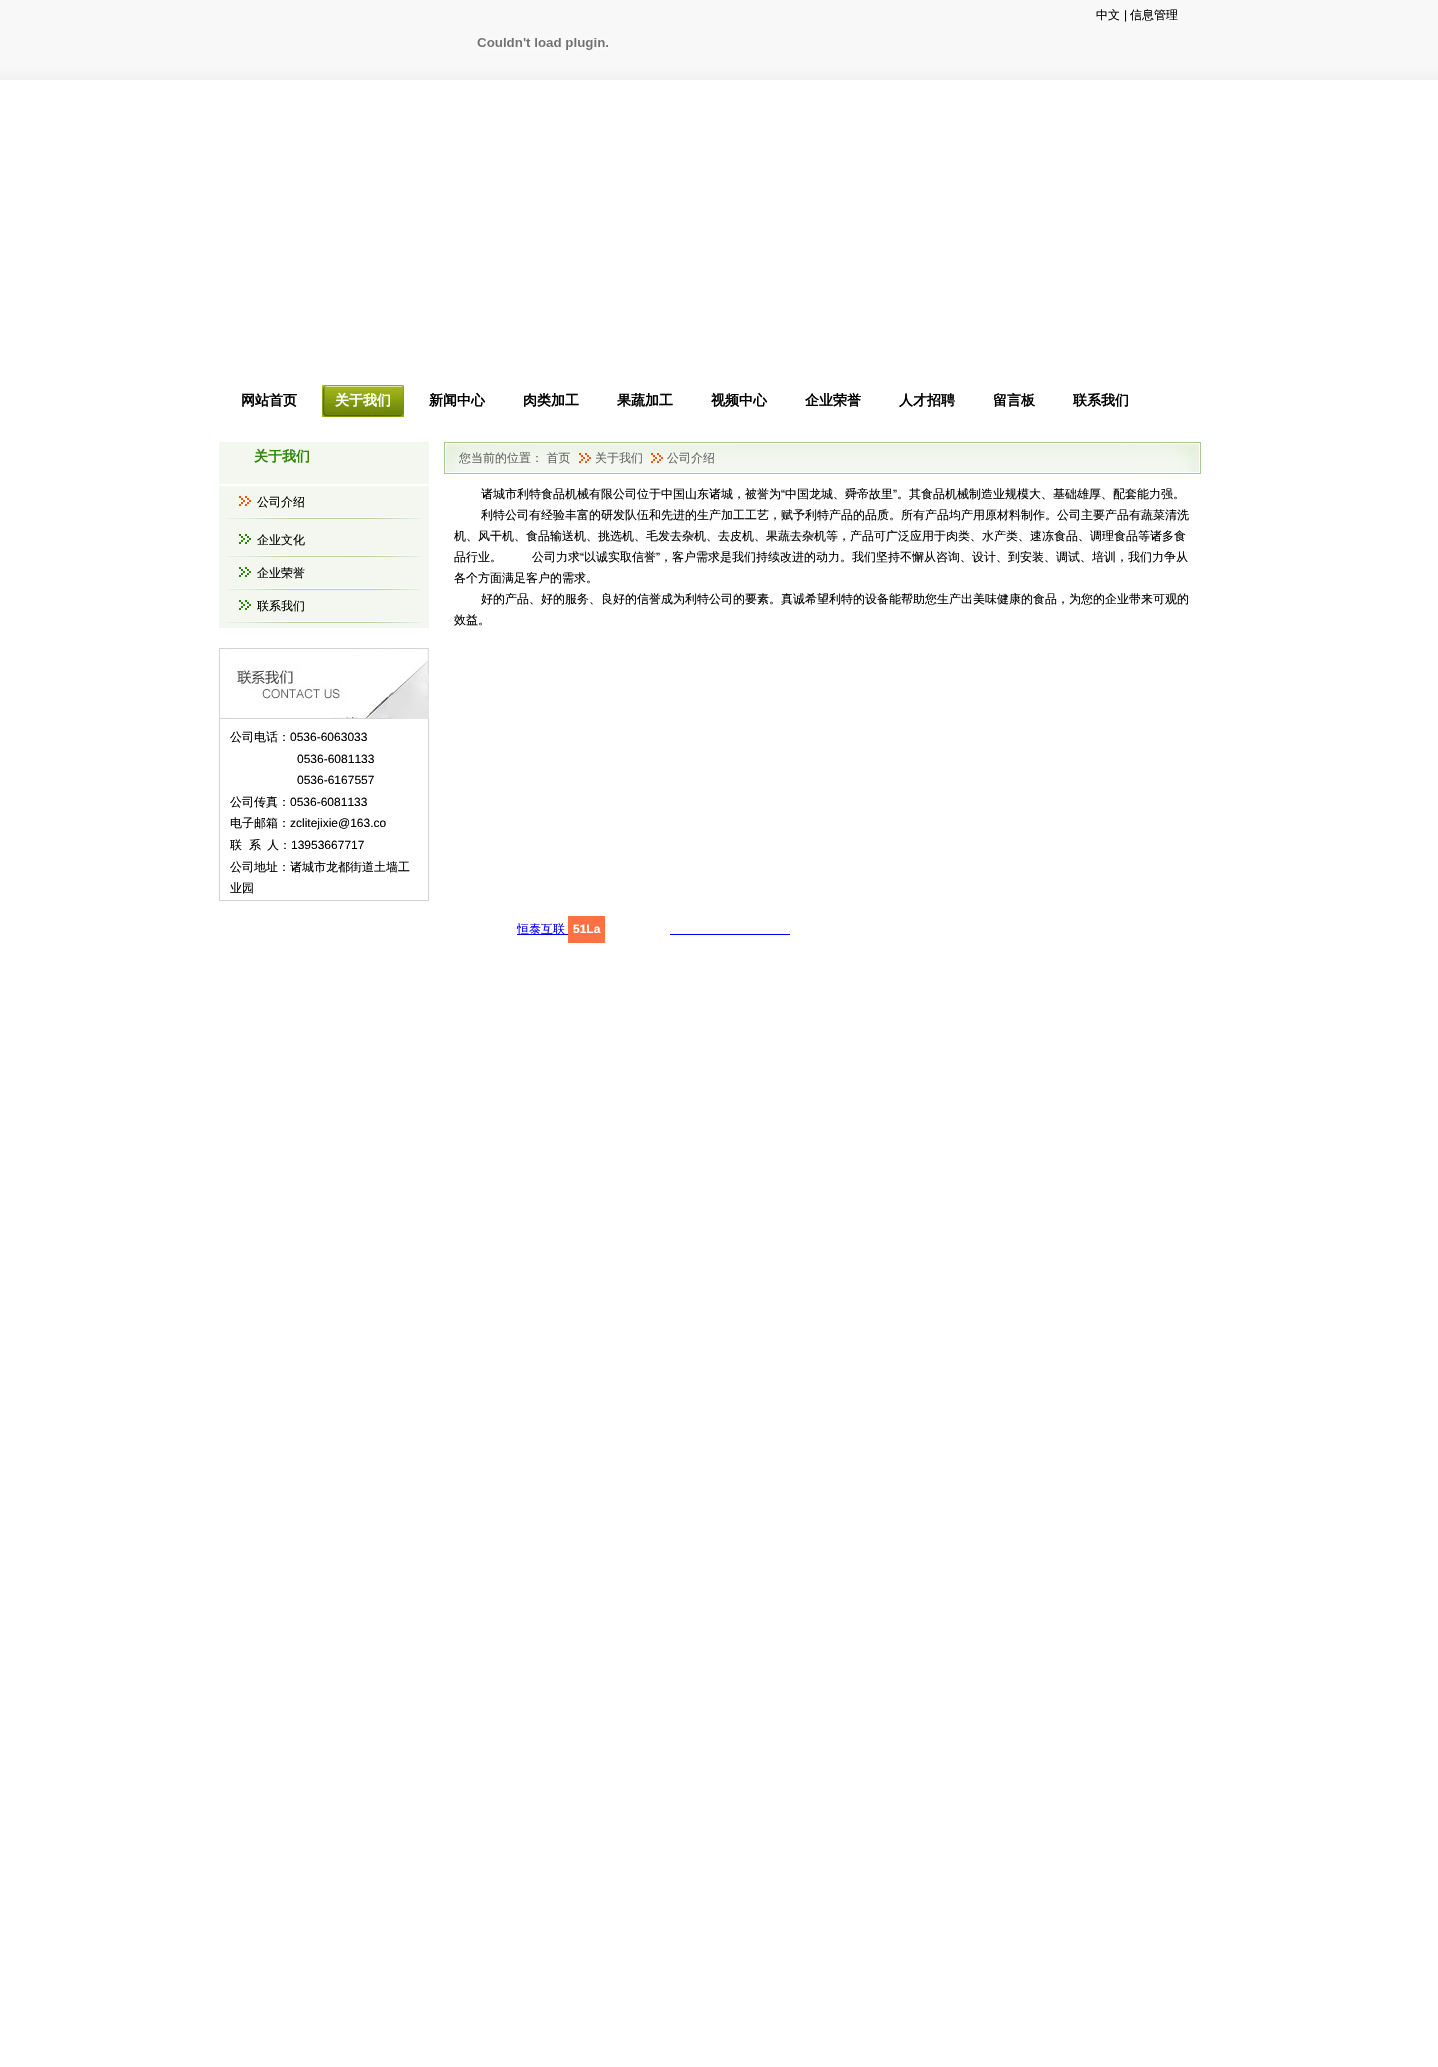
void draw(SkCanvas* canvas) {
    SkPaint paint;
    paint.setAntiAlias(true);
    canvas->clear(0xFFFFFFFF);
    canvas->drawImageRect(SkImages::DeferredFromEncodedData(SkData::MakeFromFileName("img1.png")), SkRect::MakeXYWH(0, 0, 1438, 80), SkSamplingOptions());
    SkFont font1(fontMgr->matchFamilyStyle("WenQuanYi Zen Hei", SkFontStyle(500, SkFontStyle::kNormal_Width, SkFontStyle::kUpright_Slant)), 12);
    font1.setSubpixel(true);
    paint.setColor(0xFF000000);
    canvas->drawString("中文", 1096, 19, font1, paint);
    SkFont font2(fontMgr->matchFamilyStyle("Liberation Sans", SkFontStyle::Normal()), 12);
    font2.setSubpixel(true);
    canvas->drawString("|", 1124, 19, font2, paint);
    canvas->drawString("信息管理", 1130, 19, font1, paint);
    canvas->drawImageRect(SkImages::DeferredFromEncodedData(SkData::MakeFromFileName("img2.png")), SkRect::MakeXYWH(477, 38, 131, 12), SkSamplingOptions());
    SkFont font3(fontMgr->matchFamilyStyle("WenQuanYi Zen Hei", SkFontStyle::Bold()), 14);
    font3.setSubpixel(true);
    canvas->drawString("网站首页", 241, 405, font3, paint);
    canvas->drawImageRect(SkImages::DeferredFromEncodedData(SkData::MakeFromFileName("img3.png")), SkRect::MakeXYWH(322, 385, 5, 32), SkSamplingOptions());
    canvas->drawImageRect(SkImages::DeferredFromEncodedData(SkData::MakeFromFileName("img4.png")), SkRect::MakeXYWH(327, 385, 77, 32), SkSamplingOptions());
    paint.setColor(0xFFFFFFFF);
    canvas->drawString("关于我们", 335, 405, font3, paint);
    paint.setColor(0xFF000000);
    canvas->drawString("新闻中心", 429, 405, font3, paint);
    canvas->drawString("肉类加工", 523, 405, font3, paint);
    canvas->drawString("果蔬加工", 617, 405, font3, paint);
    canvas->drawString("视频中心", 711, 405, font3, paint);
    canvas->drawString("企业荣誉", 805, 405, font3, paint);
    canvas->drawString("人才招聘", 899, 405, font3, paint);
    canvas->drawString("留言板", 993, 405, font3, paint);
    canvas->drawString("联系我们", 1073, 405, font3, paint);
    paint.setColor(0xFFF3F7EF);
    canvas->drawRect(SkRect::MakeXYWH(219, 442, 210, 186), paint);
    paint.setColor(0xFFFFFFFF);
    canvas->drawRect(SkRect::MakeXYWH(219, 484, 210, 2), paint);
    paint.setColor(0xFF2D8602);
    canvas->drawString("关于我们", 254, 461, font3, paint);
    canvas->drawImageRect(SkImages::DeferredFromEncodedData(SkData::MakeFromFileName("img5.png")), SkRect::MakeXYWH(227, 517, 194, 2), SkSamplingOptions());
    canvas->drawImageRect(SkImages::DeferredFromEncodedData(SkData::MakeFromFileName("img6.png")), SkRect::MakeXYWH(239, 496, 12, 10), SkSamplingOptions());
    paint.setColor(0xFF000000);
    canvas->drawString("公司介绍", 257, 506, font1, paint);
    canvas->drawImageRect(SkImages::DeferredFromEncodedData(SkData::MakeFromFileName("img5.png")), SkRect::MakeXYWH(227, 555, 194, 2), SkSamplingOptions());
    canvas->drawImageRect(SkImages::DeferredFromEncodedData(SkData::MakeFromFileName("img7.png")), SkRect::MakeXYWH(239, 534, 12, 10), SkSamplingOptions());
    canvas->drawString("企业文化", 257, 544, font1, paint);
    canvas->drawImageRect(SkImages::DeferredFromEncodedData(SkData::MakeFromFileName("img5.png")), SkRect::MakeXYWH(227, 588, 194, 2), SkSamplingOptions());
    canvas->drawImageRect(SkImages::DeferredFromEncodedData(SkData::MakeFromFileName("img7.png")), SkRect::MakeXYWH(239, 567, 12, 10), SkSamplingOptions());
    canvas->drawString("企业荣誉", 257, 577, font1, paint);
    canvas->drawImageRect(SkImages::DeferredFromEncodedData(SkData::MakeFromFileName("img5.png")), SkRect::MakeXYWH(227, 621, 194, 2), SkSamplingOptions());
    canvas->drawImageRect(SkImages::DeferredFromEncodedData(SkData::MakeFromFileName("img7.png")), SkRect::MakeXYWH(239, 600, 12, 10), SkSamplingOptions());
    canvas->drawString("联系我们", 257, 610, font1, paint);
    canvas->drawImageRect(SkImages::DeferredFromEncodedData(SkData::MakeFromFileName("img8.png")), SkRect::MakeXYWH(219, 648, 210, 71), SkSamplingOptions());
    paint.setColor(0xFFD3D3D3);
    canvas->drawRect(SkRect::MakeXYWH(428, 719, 1, 182), paint);
    canvas->drawRect(SkRect::MakeXYWH(219, 900, 210, 1), paint);
    canvas->drawRect(SkRect::MakeXYWH(219, 719, 1, 182), paint);
    paint.setColor(0xFF000000);
    canvas->drawString("公司电话：", 230, 741, font1, paint);
    canvas->drawString("0536-6063033", 290, 741, font2, paint);
    canvas->drawString("0536-6081133", 297, 763, font2, paint);
    canvas->drawString("0536-6167557", 297, 784, font2, paint);
    canvas->drawString("公司传真：", 230, 806, font1, paint);
    canvas->drawString("0536-6081133", 290, 806, font2, paint);
    canvas->drawString("电子邮箱：", 230, 827, font1, paint);
    canvas->drawString("zclitejixie@163.co", 290, 827, font2, paint);
    canvas->drawString("联", 230, 849, font1, paint);
    canvas->drawString("系", 249, 849, font1, paint);
    canvas->drawString("人：", 267, 849, font1, paint);
    canvas->drawString("13953667717", 291, 849, font2, paint);
    canvas->drawString("公司地址：诸城市龙都街道土墙工", 230, 871, font1, paint);
    canvas->drawString("业园", 230, 892, font1, paint);
    canvas->drawImageRect(SkImages::DeferredFromEncodedData(SkData::MakeFromFileName("img9.png")), SkRect::MakeXYWH(444, 442, 757, 32), SkSamplingOptions());
    paint.setColor(0xFF666666);
    canvas->drawString("您当前的位置： 首页", 459, 462, font1, paint);
    canvas->drawImageRect(SkImages::DeferredFromEncodedData(SkData::MakeFromFileName("img10.png")), SkRect::MakeXYWH(579, 453, 12, 10), SkSamplingOptions());
    canvas->drawString("关于我们", 595, 462, font1, paint);
    canvas->drawImageRect(SkImages::DeferredFromEncodedData(SkData::MakeFromFileName("img10.png")), SkRect::MakeXYWH(651, 453, 12, 10), SkSamplingOptions());
    canvas->drawString("公司介绍", 667, 462, font1, paint);
    paint.setColor(0xFF000000);
    canvas->drawString("诸城市利特食品机械有限公司位于中国山东诸城，被誉为", 481, 498, font1, paint);
    canvas->drawString("“", 781, 498, font2, paint);
    canvas->drawString("中国龙城、舜帝故里", 785, 498, font1, paint);
    canvas->drawString("”", 893, 498, font2, paint);
    canvas->drawString("。其食品机械制造业规模大、基础雄厚、配套能力强。", 897, 498, font1, paint);
    canvas->drawString("利特公司有经验丰富的研发队伍和先进的生产加工工艺，赋予利特产品的品质。所有产品均产用原材料制作。公司主要产品有蔬菜清洗", 481, 519, font1, paint);
    canvas->drawString("机、风干机、食品输送机、挑选机、毛发去杂机、去皮机、果蔬去杂机等，产品可广泛应用于肉类、水产类、速冻食品、调理食品等诸多食", 454, 540, font1, paint);
    canvas->drawString("品行业。", 454, 561, font1, paint);
    canvas->drawString("公司力求", 532, 561, font1, paint);
    canvas->drawString("“", 580, 561, font2, paint);
    canvas->drawString("以诚实取信誉", 584, 561, font1, paint);
    canvas->drawString("”", 656, 561, font2, paint);
    canvas->drawString("，客户需求是我们持续改进的动力。我们坚持不懈从咨询、设计、到安装、调试、培训，我们力争从", 660, 561, font1, paint);
    canvas->drawString("各个方面满足客户的需求。", 454, 582, font1, paint);
    canvas->drawString("好的产品、好的服务、良好的信誉成为利特公司的要素。真诚希望利特的设备能帮助您生产出美味健康的食品，为您的企业带来可观的", 481, 603, font1, paint);
    canvas->drawString("效益。", 454, 624, font1, paint);
    paint.setColor(0xFF0000EE);
    canvas->drawRect(SkRect::MakeXYWH(517, 934, 51, 1), paint);
    canvas->drawString("恒泰互联", 517, 933, font1, paint);
    paint.setColor(0xFFFF7043);
    canvas->drawRect(SkRect::MakeXYWH(568, 916, 37, 27), paint);
    SkFont font4(fontMgr->matchFamilyStyle("Liberation Sans", SkFontStyle::Bold()), 12);
    font4.setSubpixel(true);
    paint.setColor(0xFFFFFFFF);
    canvas->drawString("51La", 573, 933, font4, paint);
    paint.setColor(0xFF0000EE);
    canvas->drawRect(SkRect::MakeXYWH(670, 934, 120, 1), paint);
}
